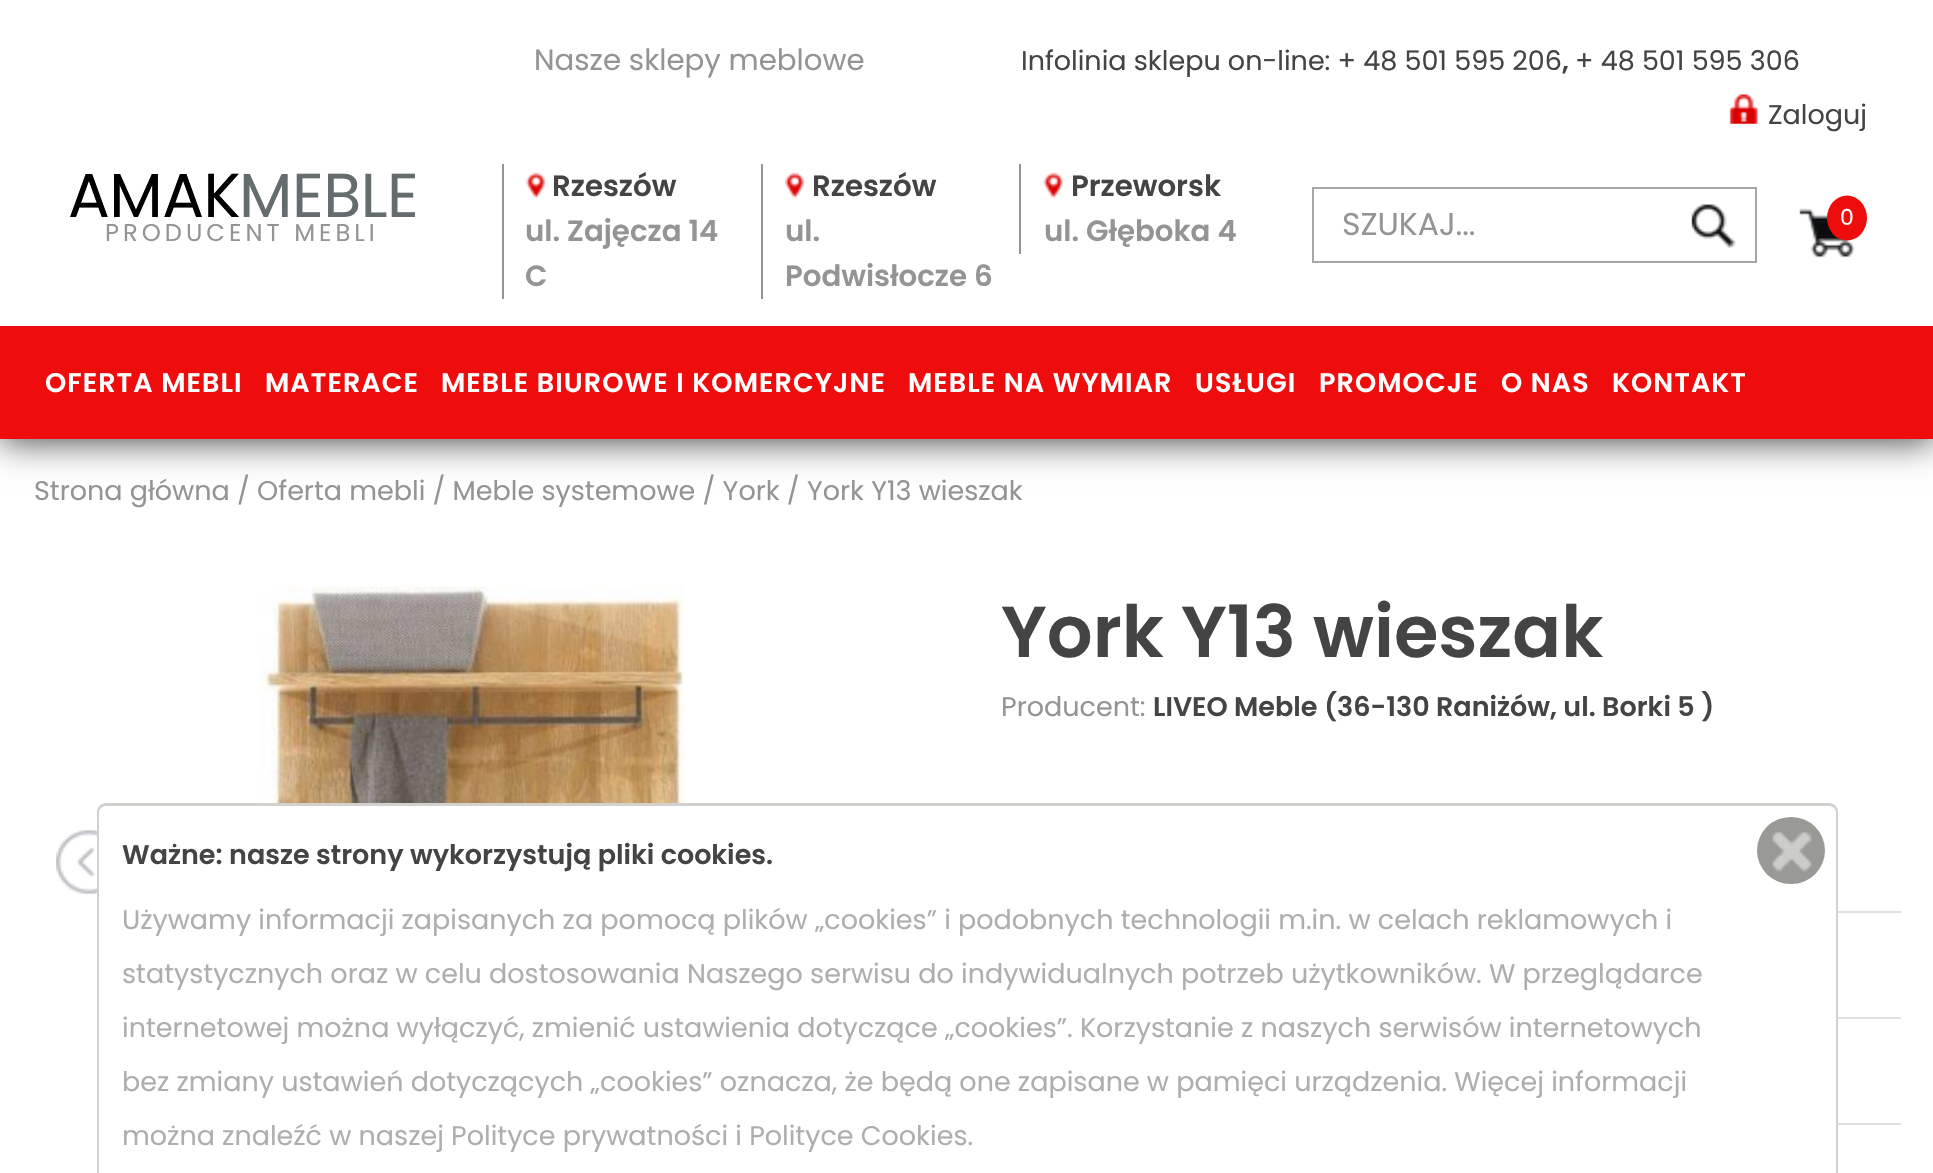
void draw(SkCanvas* canvas) {
    SkPaint paint;
    paint.setAntiAlias(true);
    auto spacedText = [&](const char* s, float x, float y, const SkFont& font, const SkPaint& ink, float letter, float word) {
        std::vector<SkGlyphID> glyphs(font.countText(s, strlen(s), SkTextEncoding::kUTF8));
        std::vector<float> xs(glyphs.size());
        font.textToGlyphs(s, strlen(s), SkTextEncoding::kUTF8, glyphs);
        font.getXPos(glyphs, xs, x);
        float extra = 0;
        for (size_t i = 0; i < glyphs.size(); i++) {
            xs[i] += extra;
            extra += letter + word * (glyphs[i] == font.unicharToGlyph(' '));
        }
        canvas->drawTextBlob(SkTextBlob::MakeFromPosHGlyphs(glyphs, xs, y, font), 0, 0, ink);
    };
    canvas->clear(0xFFFFFFFF);
    paint.setColor(0xBF000000);
    paint.setMaskFilter(SkMaskFilter::MakeBlur(kNormal_SkBlurStyle, 17));
    canvas->drawRect(SkRect::MakeXYWH(0, 2, 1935, 439), paint);
    paint.setMaskFilter(nullptr);
    paint.setColor(0xFFFFFFFF);
    canvas->drawRect(SkRect::MakeXYWH(0, 0, 1933, 326), paint);
    SkFont font1(fontMgr->matchFamilyStyle("Poppins", SkFontStyle::Normal()), 29.25f);
    font1.setSubpixel(true);
    paint.setColor(0xFF949494);
    canvas->drawString("Nasze sklepy meblowe", 534, 70, font1, paint);
    SkFont font2(fontMgr->matchFamilyStyle("Poppins", SkFontStyle::Normal()), 27);
    font2.setSubpixel(true);
    paint.setColor(0xFF444444);
    canvas->drawString("Infolinia sklepu on-line: + 48 501 595 206", 1021, 70, font2, paint);
    SkFont font3(fontMgr->matchFamilyStyle("Poppins", SkFontStyle(600, SkFontStyle::kNormal_Width, SkFontStyle::kUpright_Slant)), 27);
    font3.setSubpixel(true);
    canvas->drawString(",", 1562, 70, font3, paint);
    canvas->drawString("+ 48 501 595 306", 1575, 70, font2, paint);
    canvas->drawImageRect(SkImages::DeferredFromEncodedData(SkData::MakeFromFileName("img1.png")), SkRect::MakeXYWH(1729, 94, 30, 30), SkSamplingOptions());
    canvas->drawString("Zaloguj", 1768, 124, font2, paint);
    SkFont font4(fontMgr->matchFamilyStyle("Poppins", SkFontStyle::Normal()), 62);
    font4.setSubpixel(true);
    paint.setColor(0xFF000000);
    spacedText("AMAK", 68, 217, font4, paint, -0.5f, 0);
    paint.setColor(0xFF656C6E);
    spacedText("MEBLE", 239, 217, font4, paint, -0.5f, 0);
    SkFont font5(fontMgr->matchFamilyStyle("Poppins", SkFontStyle::Normal()), 24.25f);
    font5.setSubpixel(true);
    paint.setColor(0xFF949494);
    spacedText("PRODUCENT MEBLI", 105, 241, font5, paint, 4, 0);
    canvas->drawRect(SkRect::MakeXYWH(502, 164, 2, 135), paint);
    canvas->drawImageRect(SkImages::DeferredFromEncodedData(SkData::MakeFromFileName("img2.png")), SkRect::MakeXYWH(526, 172, 20, 27), SkSamplingOptions());
    SkFont font6(fontMgr->matchFamilyStyle("Poppins", SkFontStyle(600, SkFontStyle::kNormal_Width, SkFontStyle::kUpright_Slant)), 29.25f);
    font6.setSubpixel(true);
    paint.setColor(0xFF444444);
    canvas->drawString("Rzeszów", 552, 196, font6, paint);
    paint.setColor(0xFF949494);
    canvas->drawString("ul. Zajęcza 14", 525, 241, font6, paint);
    canvas->drawString("C", 525, 286, font6, paint);
    canvas->drawRect(SkRect::MakeXYWH(761, 164, 2, 135), paint);
    canvas->drawImageRect(SkImages::DeferredFromEncodedData(SkData::MakeFromFileName("img3.png")), SkRect::MakeXYWH(785, 172, 20, 27), SkSamplingOptions());
    paint.setColor(0xFF444444);
    canvas->drawString("Rzeszów", 812, 196, font6, paint);
    paint.setColor(0xFF949494);
    canvas->drawString("ul.", 785, 241, font6, paint);
    canvas->drawString("Podwisłocze 6", 785, 286, font6, paint);
    canvas->drawRect(SkRect::MakeXYWH(1019, 164, 2, 90), paint);
    canvas->drawImageRect(SkImages::DeferredFromEncodedData(SkData::MakeFromFileName("img4.png")), SkRect::MakeXYWH(1043, 172, 21, 27), SkSamplingOptions());
    paint.setColor(0xFF444444);
    canvas->drawString("Przeworsk", 1071, 196, font6, paint);
    paint.setColor(0xFF949494);
    canvas->drawString("ul. Głęboka 4", 1044, 241, font6, paint);
    paint.setStyle(SkPaint::kStroke_Style);
    paint.setStrokeWidth(2);
    paint.setColor(0xFFA7A7A7);
    canvas->drawRect(SkRect::MakeXYWH(1313, 188, 443, 74), paint);
    SkFont font7(fontMgr->matchFamilyStyle("Poppins", SkFontStyle::Normal()), 31.5f);
    font7.setSubpixel(true);
    paint.setStyle(SkPaint::kFill_Style);
    paint.setColor(0xFF949494);
    canvas->drawString("SZUKAJ...", 1342, 235, font7, paint);
    canvas->drawImageRect(SkImages::DeferredFromEncodedData(SkData::MakeFromFileName("img5.png")), SkRect::MakeXYWH(1691, 204, 45, 44), SkSamplingOptions());
    canvas->drawImageRect(SkImages::DeferredFromEncodedData(SkData::MakeFromFileName("img6.png")), SkRect::MakeXYWH(1799, 208, 56, 50), SkSamplingOptions());
    paint.setColor(0xFFEF0C0C);
    canvas->drawOval(SkRect::MakeXYWH(1827, 195.5f, 40, 45), paint);
    SkFont font8(fontMgr->matchFamilyStyle("Poppins", SkFontStyle::Normal()), 22);
    font8.setSubpixel(true);
    paint.setColor(0xFFFFFFFF);
    canvas->drawString("0", 1840, 225, font8, paint);
    paint.setColor(0xFFEF0C0C);
    canvas->drawRect(SkRect::MakeXYWH(0, 326, 1933, 113), paint);
    paint.setColor(0xFFFFFFFF);
    spacedText("OFERTA MEBLI", 45, 392, font3, paint, 1.1f, 0);
    spacedText("MATERACE", 265, 392, font3, paint, 1.1f, 0);
    spacedText("MEBLE BIUROWE I KOMERCYJNE", 441, 392, font3, paint, 1.1f, 0);
    spacedText("MEBLE NA WYMIAR", 908, 392, font3, paint, 1.1f, 0);
    spacedText("USŁUGI", 1195, 392, font3, paint, 1.1f, 0);
    spacedText("PROMOCJE", 1319, 392, font3, paint, 1.1f, 0);
    spacedText("O NAS", 1501, 392, font3, paint, 1.1f, 0);
    spacedText("KONTAKT", 1612, 392, font3, paint, 1.1f, 0);
    paint.setColor(0xFF949494);
    canvas->drawString("Strona główna / Oferta mebli / Meble systemowe / York / York Y13 wieszak", 34, 500, font2, paint);
    canvas->drawImageRect(SkImages::DeferredFromEncodedData(SkData::MakeFromFileName("img7.png")), SkRect::MakeXYWH(258, 586, 426, 217), SkSamplingOptions());
    canvas->drawImageRect(SkImages::DeferredFromEncodedData(SkData::MakeFromFileName("img8.png")), SkRect::MakeXYWH(56, 830, 41, 65), SkSamplingOptions());
    SkFont font9(fontMgr->matchFamilyStyle("Poppins", SkFontStyle(600, SkFontStyle::kNormal_Width, SkFontStyle::kUpright_Slant)), 72);
    font9.setSubpixel(true);
    paint.setColor(0xFF444444);
    canvas->drawString("York Y13 wieszak", 1001, 657, font9, paint);
    paint.setColor(0xFF949494);
    canvas->drawString("Producent:", 1001, 716, font2, paint);
    paint.setColor(0xFF444444);
    canvas->drawString("LIVEO Meble (36-130 Raniżów, ul. Borki 5 )", 1153, 716, font3, paint);
    paint.setColor(0xFFDFDFDF);
    canvas->drawRect(SkRect::MakeXYWH(1838, 911, 63, 2), paint);
    canvas->drawRect(SkRect::MakeXYWH(1838, 1017, 63, 2), paint);
    canvas->drawRect(SkRect::MakeXYWH(1838, 1123, 63, 2), paint);
    paint.setColor(0xFFD2D1CE);
    canvas->drawPath(SkPathBuilder(SkPathFillType::kEvenOdd).moveTo(106, 803).lineTo(1829, 803).cubicTo(1834, 803, 1838, 807, 1838, 812).lineTo(1838, 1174).lineTo(97, 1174).lineTo(97, 812).cubicTo(97, 807, 101, 803, 106, 803).close().moveTo(106, 806).lineTo(1829, 806).cubicTo(1833, 806, 1836, 809, 1836, 812).lineTo(1836, 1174).lineTo(99, 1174).lineTo(99, 812).cubicTo(99, 809, 102, 806, 106, 806).close().detach(), paint);
    paint.setColor(0xFF444444);
    canvas->drawString("Ważne: nasze strony wykorzystują pliki cookies.", 122, 864, font3, paint);
    paint.setColor(0xFF999A96);
    canvas->drawRoundRect(SkRect::MakeXYWH(1757, 817, 68, 67), 33.5f, 33.5f, paint);
    canvas->drawImageRect(SkImages::DeferredFromEncodedData(SkData::MakeFromFileName("img9.png")), SkRect::MakeXYWH(1772, 831, 40, 41), SkSamplingOptions());
    paint.setColor(0xFFAEAEAE);
    canvas->drawString("Używamy informacji zapisanych za pomocą plików „cookies” i podobnych technologii m.in. w celach reklamowych i", 122, 929, font2, paint);
    canvas->drawString("statystycznych oraz w celu dostosowania Naszego serwisu do indywidualnych potrzeb użytkowników. W przeglądarce", 122, 983, font2, paint);
    canvas->drawString("internetowej można wyłączyć, zmienić ustawienia dotyczące „cookies”. Korzystanie z naszych serwisów internetowych", 122, 1037, font2, paint);
    canvas->drawString("bez zmiany ustawień dotyczących „cookies” oznacza, że będą one zapisane w pamięci urządzenia. Więcej informacji", 122, 1091, font2, paint);
    canvas->drawString("można znaleźć w naszej Polityce prywatności i Polityce Cookies.", 122, 1145, font2, paint);
}
